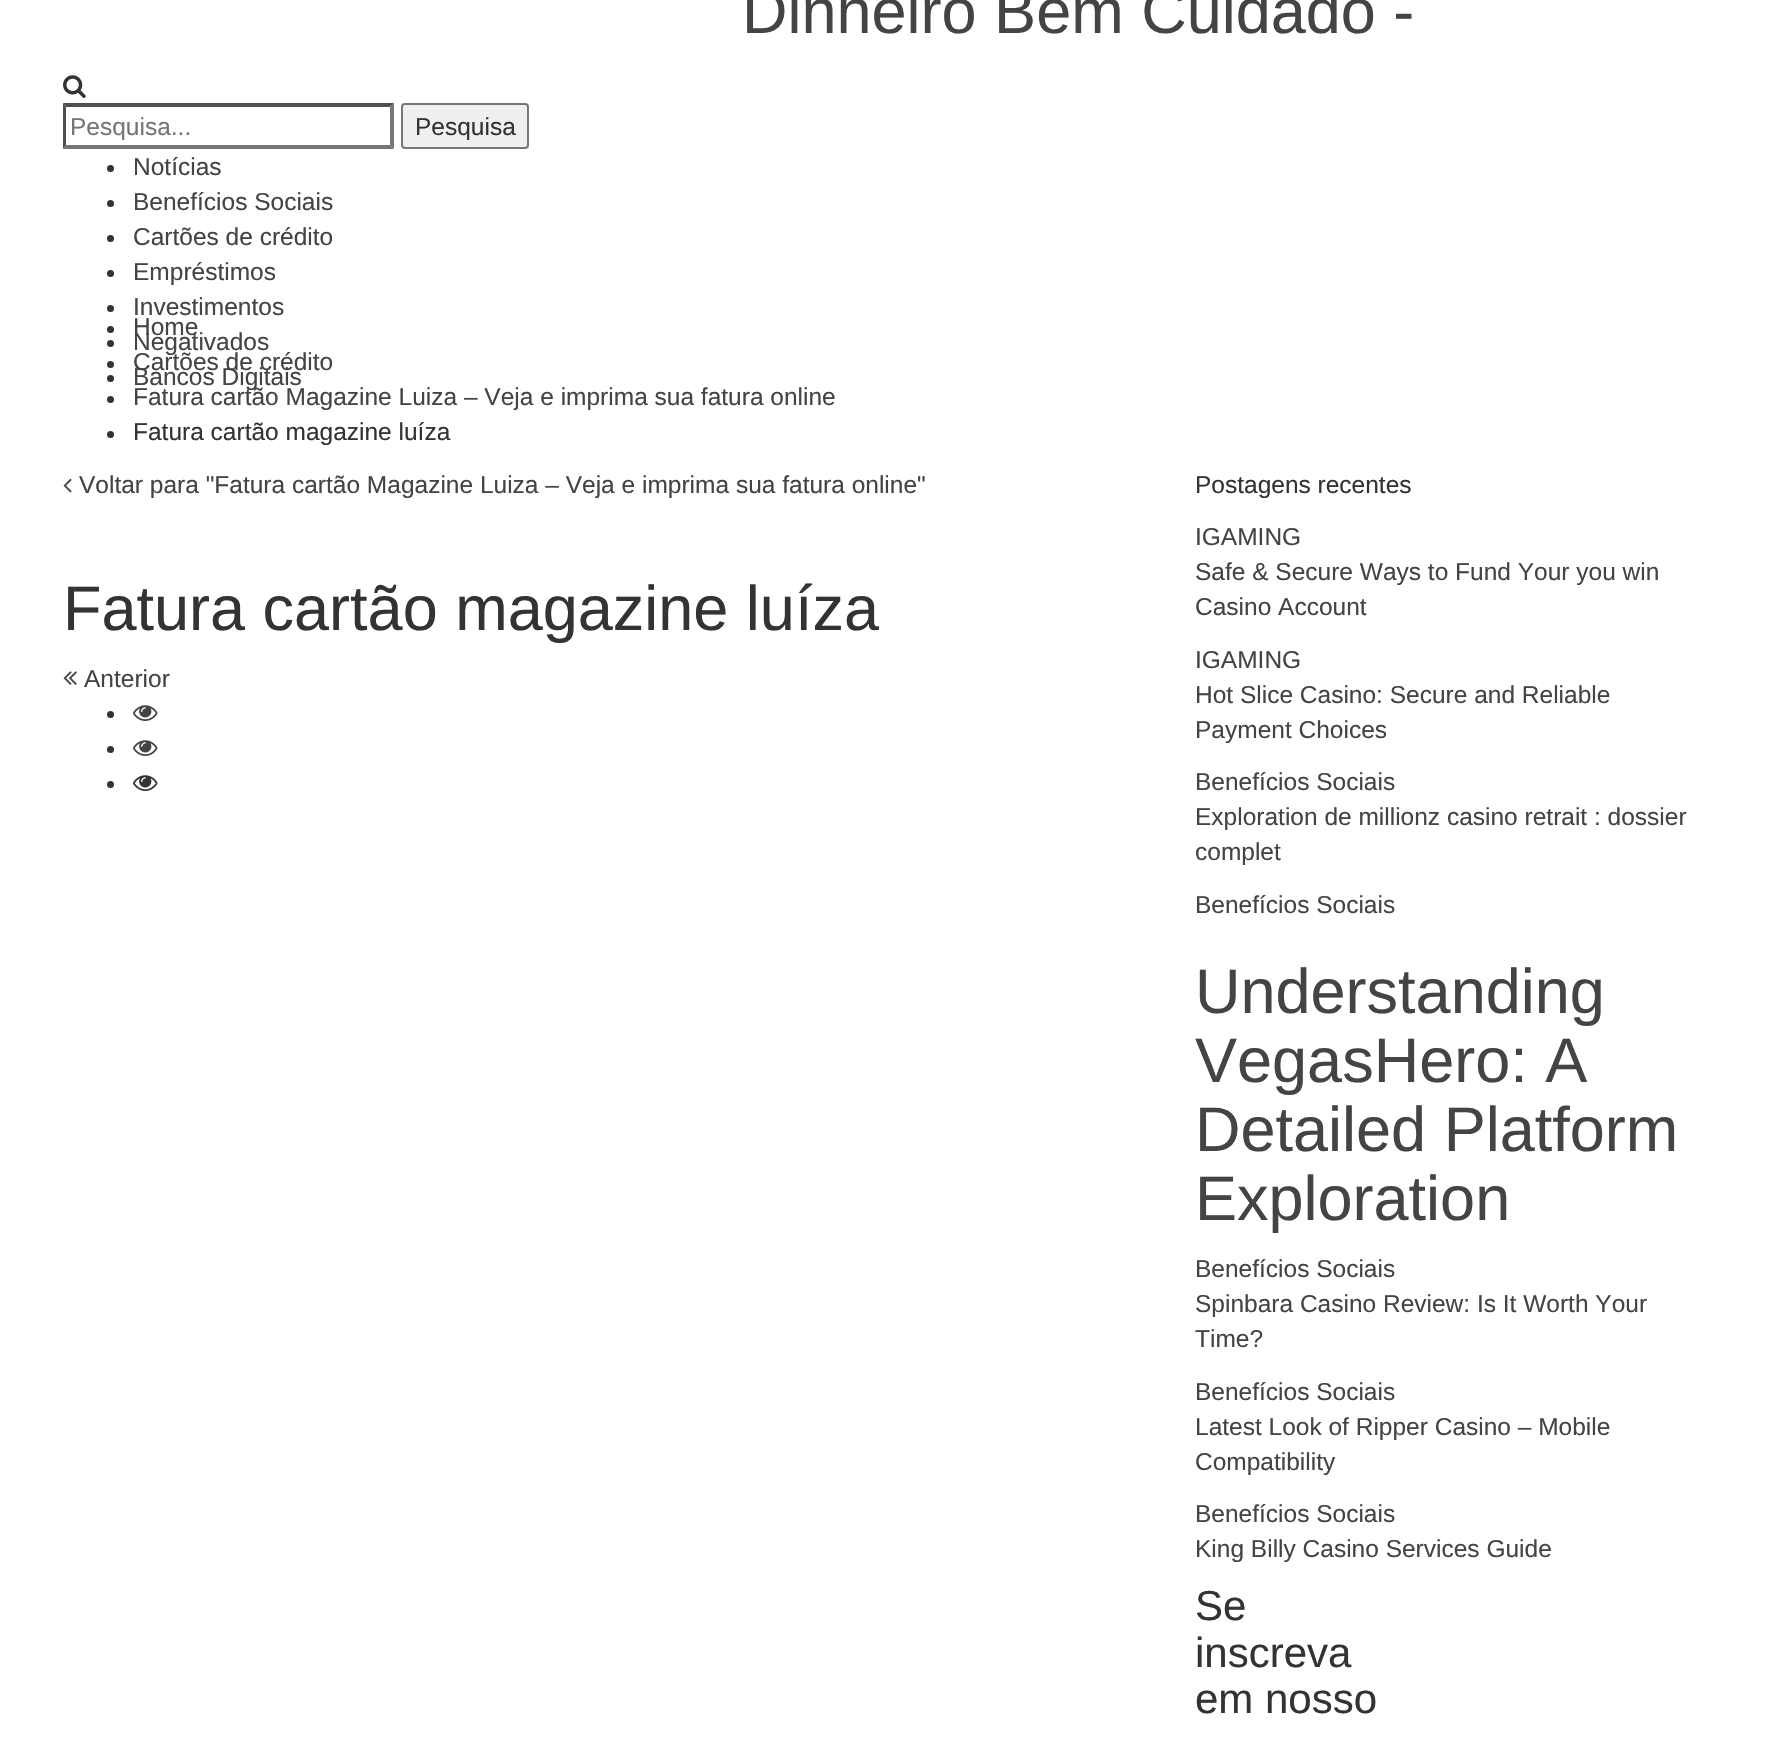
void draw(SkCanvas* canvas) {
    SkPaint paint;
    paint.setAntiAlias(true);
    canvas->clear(0xFFFFFFFF);
    SkFont font1(fontMgr->matchFamilyStyle("Liberation Sans", SkFontStyle::Normal()), 63);
    font1.setSubpixel(true);
    paint.setColor(0xFF444444);
    canvas->drawString("Dinheiro Bem Cuidado -", 742, 33, font1, paint);
    canvas->drawImageRect(SkImages::DeferredFromEncodedData(SkData::MakeFromFileName("img1.png")), SkRect::MakeXYWH(63, 75, 23, 23), SkSamplingOptions());
    paint.setColor(0xFF4F4F4F);
    canvas->drawPath(SkPathBuilder().moveTo(63, 103).lineTo(394, 103).lineTo(390, 107).lineTo(66, 107).close().detach(), paint);
    paint.setColor(0xFF767676);
    canvas->drawPath(SkPathBuilder().moveTo(394, 103).lineTo(394, 149).lineTo(390, 145).lineTo(390, 107).close().detach(), paint);
    canvas->drawPath(SkPathBuilder().moveTo(394, 149).lineTo(63, 149).lineTo(66, 145).lineTo(390, 145).close().detach(), paint);
    paint.setColor(0xFF4F4F4F);
    canvas->drawPath(SkPathBuilder().moveTo(63, 149).lineTo(63, 103).lineTo(66, 107).lineTo(66, 145).close().detach(), paint);
    SkFont font2(fontMgr->matchFamilyStyle("Liberation Sans", SkFontStyle::Normal()), 24.5f);
    font2.setSubpixel(true);
    paint.setColor(0xFF757575);
    canvas->drawString("Pesquisa...", 70, 135, font2, paint);
    paint.setColor(0xFFEFEFEF);
    canvas->drawRoundRect(SkRect::MakeXYWH(402, 104, 126, 44), 3, 3, paint);
    paint.setStyle(SkPaint::kStroke_Style);
    paint.setStrokeWidth(2);
    paint.setColor(0xFF767676);
    canvas->drawRoundRect(SkRect::MakeXYWH(402, 104, 126, 44), 3, 3, paint);
    paint.setStyle(SkPaint::kFill_Style);
    paint.setColor(0xFF333333);
    canvas->drawString("Pesquisa", 415, 135, font2, paint);
    canvas->drawCircle(110.5f, 168.5f, 3.5f, paint);
    paint.setColor(0xFF444444);
    canvas->drawString("Notícias", 133, 175, font2, paint);
    paint.setColor(0xFF333333);
    canvas->drawCircle(110.5f, 203.5f, 3.5f, paint);
    paint.setColor(0xFF444444);
    canvas->drawString("Benefícios Sociais", 133, 210, font2, paint);
    paint.setColor(0xFF333333);
    canvas->drawCircle(110.5f, 238.5f, 3.5f, paint);
    paint.setColor(0xFF444444);
    canvas->drawString("Cartões de crédito", 133, 245, font2, paint);
    paint.setColor(0xFF333333);
    canvas->drawCircle(110.5f, 273.5f, 3.5f, paint);
    paint.setColor(0xFF444444);
    canvas->drawString("Empréstimos", 133, 280, font2, paint);
    paint.setColor(0xFF333333);
    canvas->drawCircle(110.5f, 308.5f, 3.5f, paint);
    paint.setColor(0xFF444444);
    canvas->drawString("Investimentos", 133, 315, font2, paint);
    paint.setColor(0xFF333333);
    canvas->drawCircle(110.5f, 343.5f, 3.5f, paint);
    paint.setColor(0xFF444444);
    canvas->drawString("Negativados", 133, 350, font2, paint);
    paint.setColor(0xFF333333);
    canvas->drawCircle(110.5f, 378.5f, 3.5f, paint);
    paint.setColor(0xFF444444);
    canvas->drawString("Bancos Digitais", 133, 385, font2, paint);
    paint.setColor(0xFF333333);
    canvas->drawCircle(110.5f, 329.5f, 3.5f, paint);
    paint.setColor(0xFF444444);
    canvas->drawString("Home", 133, 335, font2, paint);
    paint.setColor(0xFF333333);
    canvas->drawCircle(110.5f, 364.5f, 3.5f, paint);
    paint.setColor(0xFF444444);
    canvas->drawString("Cartões de crédito", 133, 370, font2, paint);
    paint.setColor(0xFF333333);
    canvas->drawCircle(110.5f, 399.5f, 3.5f, paint);
    paint.setColor(0xFF444444);
    canvas->drawString("Fatura cartão Magazine Luiza – Veja e imprima sua fatura online", 133, 405, font2, paint);
    paint.setColor(0xFF333333);
    canvas->drawCircle(110.5f, 434.5f, 3.5f, paint);
    canvas->drawString("Fatura cartão magazine luíza", 133, 440, font2, paint);
    canvas->drawImageRect(SkImages::DeferredFromEncodedData(SkData::MakeFromFileName("img2.png")), SkRect::MakeXYWH(63, 478, 9, 15), SkSamplingOptions());
    paint.setColor(0xFF444444);
    canvas->drawString("Voltar para \"Fatura cartão Magazine Luiza – Veja e imprima sua fatura online\"", 79, 493, font2, paint);
    paint.setColor(0xFF333333);
    canvas->drawString("Fatura cartão magazine luíza", 63, 630, font1, paint);
    canvas->drawImageRect(SkImages::DeferredFromEncodedData(SkData::MakeFromFileName("img3.png")), SkRect::MakeXYWH(63, 671, 14, 14), SkSamplingOptions());
    paint.setColor(0xFF444444);
    canvas->drawString("Anterior", 84, 687, font2, paint);
    paint.setColor(0xFF333333);
    canvas->drawCircle(110.5f, 714.5f, 3.5f, paint);
    canvas->drawImageRect(SkImages::DeferredFromEncodedData(SkData::MakeFromFileName("img4.png")), SkRect::MakeXYWH(133, 705, 25, 16), SkSamplingOptions());
    canvas->drawCircle(110.5f, 749.5f, 3.5f, paint);
    canvas->drawImageRect(SkImages::DeferredFromEncodedData(SkData::MakeFromFileName("img4.png")), SkRect::MakeXYWH(133, 740, 25, 16), SkSamplingOptions());
    canvas->drawCircle(110.5f, 784.5f, 3.5f, paint);
    canvas->drawImageRect(SkImages::DeferredFromEncodedData(SkData::MakeFromFileName("img5.png")), SkRect::MakeXYWH(133, 775, 25, 16), SkSamplingOptions());
    canvas->drawString("Postagens recentes", 1195, 493, font2, paint);
    paint.setColor(0xFF444444);
    canvas->drawString("IGAMING", 1195, 545, font2, paint);
    canvas->drawString("Safe & Secure Ways to Fund Your you win", 1195, 580, font2, paint);
    canvas->drawString("Casino Account", 1195, 615, font2, paint);
    canvas->drawString("IGAMING", 1195, 668, font2, paint);
    canvas->drawString("Hot Slice Casino: Secure and Reliable", 1195, 703, font2, paint);
    canvas->drawString("Payment Choices", 1195, 738, font2, paint);
    canvas->drawString("Benefícios Sociais", 1195, 790, font2, paint);
    canvas->drawString("Exploration de millionz casino retrait : dossier", 1195, 825, font2, paint);
    canvas->drawString("complet", 1195, 860, font2, paint);
    canvas->drawString("Benefícios Sociais", 1195, 913, font2, paint);
    canvas->drawString("Understanding", 1195, 1013, font1, paint);
    canvas->drawString("VegasHero: A", 1195, 1082, font1, paint);
    canvas->drawString("Detailed Platform", 1195, 1151, font1, paint);
    canvas->drawString("Exploration", 1195, 1220, font1, paint);
    canvas->drawString("Benefícios Sociais", 1195, 1277, font2, paint);
    canvas->drawString("Spinbara Casino Review: Is It Worth Your", 1195, 1312, font2, paint);
    canvas->drawString("Time?", 1195, 1347, font2, paint);
    canvas->drawString("Benefícios Sociais", 1195, 1400, font2, paint);
    canvas->drawString("Latest Look of Ripper Casino – Mobile", 1195, 1435, font2, paint);
    canvas->drawString("Compatibility", 1195, 1470, font2, paint);
    canvas->drawString("Benefícios Sociais", 1195, 1522, font2, paint);
    canvas->drawString("King Billy Casino Services Guide", 1195, 1557, font2, paint);
    SkFont font3(fontMgr->matchFamilyStyle("Liberation Sans", SkFontStyle::Normal()), 42);
    font3.setSubpixel(true);
    paint.setColor(0xFF333333);
    canvas->drawString("Se", 1195, 1620, font3, paint);
    canvas->drawString("inscreva", 1195, 1667, font3, paint);
    canvas->drawString("em nosso", 1195, 1713, font3, paint);
}
